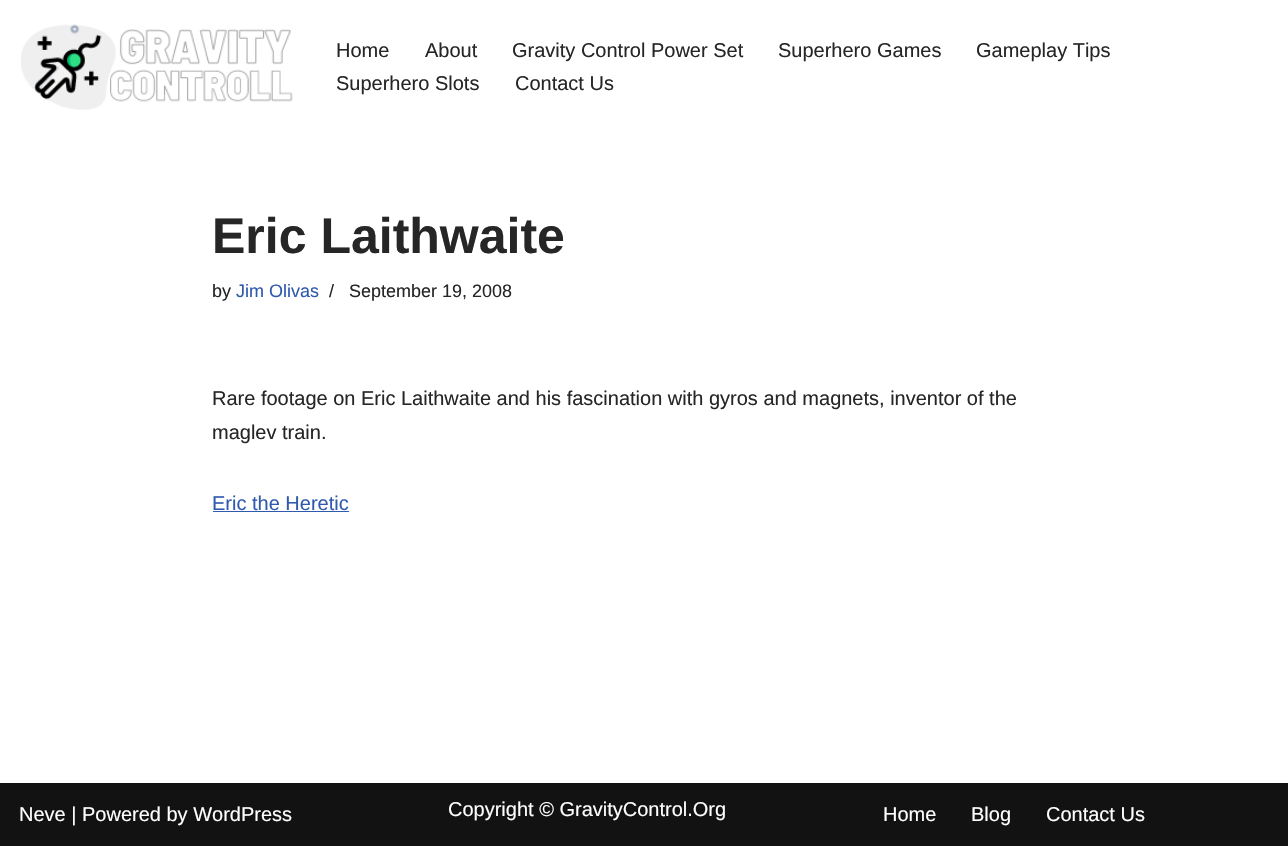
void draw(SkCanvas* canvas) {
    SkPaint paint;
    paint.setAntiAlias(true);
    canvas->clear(0xFFFFFFFF);
    canvas->drawImageRect(SkImages::DeferredFromEncodedData(SkData::MakeFromFileName("img1.png")), SkRect::MakeXYWH(21, 24, 272, 86), SkSamplingOptions());
    SkFont font1(fontMgr->matchFamilyStyle("Liberation Sans", SkFontStyle::Normal()), 20);
    font1.setSubpixel(true);
    paint.setColor(0xFF272626);
    canvas->drawString("Home", 336, 57, font1, paint);
    canvas->drawString("About", 425, 57, font1, paint);
    canvas->drawString("Gravity Control Power Set", 512, 57, font1, paint);
    canvas->drawString("Superhero Games", 778, 57, font1, paint);
    canvas->drawString("Gameplay Tips", 976, 57, font1, paint);
    canvas->drawString("Superhero Slots", 336, 90, font1, paint);
    canvas->drawString("Contact Us", 515, 90, font1, paint);
    SkFont font2(fontMgr->matchFamilyStyle("Liberation Sans", SkFontStyle::Bold()), 50);
    font2.setSubpixel(true);
    canvas->drawString("Eric Laithwaite", 212, 253, font2, paint);
    SkFont font3(fontMgr->matchFamilyStyle("Liberation Sans", SkFontStyle::Normal()), 18);
    font3.setSubpixel(true);
    canvas->drawString("by", 212, 297, font3, paint);
    paint.setColor(0xFF2F5AAE);
    canvas->drawString("Jim Olivas", 236, 297, font3, paint);
    paint.setColor(0xFF272626);
    canvas->drawString("/", 329, 297, font3, paint);
    canvas->drawString("September 19, 2008", 349, 297, font3, paint);
    canvas->drawString("Rare footage on Eric Laithwaite and his fascination with gyros and magnets, inventor of the", 212, 405, font1, paint);
    canvas->drawString("maglev train.", 212, 439, font1, paint);
    paint.setColor(0xFF2F5AAE);
    canvas->drawString("Eric the Heretic", 212, 510, font1, paint);
    canvas->drawRect(SkRect::MakeXYWH(213, 511, 136, 1), paint);
    paint.setColor(0xFF121212);
    canvas->drawRect(SkRect::MakeXYWH(0, 783, 1288, 63), paint);
    paint.setColor(0xFFFFFFFF);
    canvas->drawString("Neve | Powered by WordPress", 19, 821, font1, paint);
    canvas->drawString("Copyright © GravityControl.Org", 448, 816, font1, paint);
    canvas->drawString("Home", 883, 821, font1, paint);
    canvas->drawString("Blog", 971, 821, font1, paint);
    canvas->drawString("Contact Us", 1046, 821, font1, paint);
}
